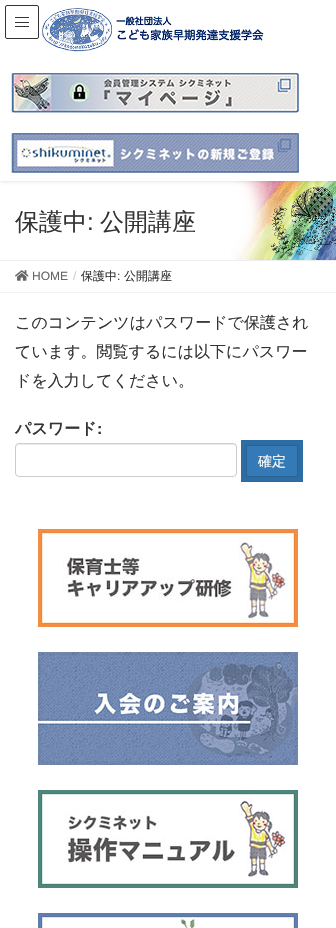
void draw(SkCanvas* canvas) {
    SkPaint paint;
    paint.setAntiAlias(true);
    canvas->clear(0xFFFFFFFF);
    canvas->drawImageRect(SkImages::DeferredFromEncodedData(SkData::MakeFromFileName("img4.png")), SkRect::MakeXYWH(231, 181, 105, 79), SkSamplingOptions());
    paint.setColor(0x1A000000);
    paint.setMaskFilter(SkMaskFilter::MakeBlur(kNormal_SkBlurStyle, 1.5f));
    canvas->drawRect(SkRect::MakeXYWH(0, 1, 336, 181), paint);
    paint.setMaskFilter(nullptr);
    paint.setColor(0xFFFFFFFF);
    canvas->drawRect(SkRect::MakeXYWH(0, 0, 336, 181), paint);
    canvas->drawImageRect(SkImages::DeferredFromEncodedData(SkData::MakeFromFileName("img1.png")), SkRect::MakeXYWH(42, 8, 222, 44), SkSamplingOptions());
    canvas->drawImageRect(SkImages::DeferredFromEncodedData(SkData::MakeFromFileName("img2.png")), SkRect::MakeXYWH(7, 73, 292, 40), SkSamplingOptions());
    canvas->drawImageRect(SkImages::DeferredFromEncodedData(SkData::MakeFromFileName("img3.png")), SkRect::MakeXYWH(7, 133, 292, 43), SkSamplingOptions());
    paint.setColor(0xFF333333);
    canvas->drawRect(SkRect::MakeXYWH(15, 17, 14, 1), paint);
    canvas->drawRect(SkRect::MakeXYWH(15, 22, 14, 1), paint);
    canvas->drawRect(SkRect::MakeXYWH(15, 26, 14, 1), paint);
    paint.setStyle(SkPaint::kStroke_Style);
    paint.setStrokeWidth(1);
    canvas->drawRoundRect(SkRect::MakeXYWH(5.5f, 5.5f, 33, 33), 1.5f, 1.5f, paint);
    paint.setStyle(SkPaint::kFill_Style);
    paint.setColor(0xFFEEEEEE);
    canvas->drawRect(SkRect::MakeXYWH(0, 260, 336, 1), paint);
    SkFont font1(fontMgr->matchFamilyStyle("WenQuanYi Zen Hei", SkFontStyle(500, SkFontStyle::kNormal_Width, SkFontStyle::kUpright_Slant)), 24);
    font1.setSubpixel(true);
    paint.setColor(0xFF333333);
    canvas->drawString("保護中", 15, 230, font1, paint);
    SkFont font2(fontMgr->matchFamilyStyle("Liberation Sans", SkFontStyle::Normal()), 24);
    font2.setSubpixel(true);
    canvas->drawString(":", 87, 230, font2, paint);
    canvas->drawString("公開講座", 100, 230, font1, paint);
    paint.setColor(0xFFF3F3F3);
    canvas->drawRect(SkRect::MakeXYWH(0, 292, 336, 1), paint);
    canvas->drawImageRect(SkImages::DeferredFromEncodedData(SkData::MakeFromFileName("img5.png")), SkRect::MakeXYWH(15, 270, 14, 11), SkSamplingOptions());
    SkFont font3(fontMgr->matchFamilyStyle("Liberation Sans", SkFontStyle::Normal()), 12);
    font3.setSubpixel(true);
    paint.setColor(0xFF666666);
    canvas->drawString("HOME", 32, 280, font3, paint);
    paint.setColor(0xFFCCCCCC);
    canvas->drawString("/", 73, 280, font3, paint);
    SkFont font4(fontMgr->matchFamilyStyle("WenQuanYi Zen Hei", SkFontStyle(500, SkFontStyle::kNormal_Width, SkFontStyle::kUpright_Slant)), 12);
    font4.setSubpixel(true);
    paint.setColor(0xFF333333);
    canvas->drawString("保護中", 81, 280, font4, paint);
    canvas->drawString(":", 117, 280, font3, paint);
    canvas->drawString("公開講座", 124, 280, font4, paint);
    SkFont font5(fontMgr->matchFamilyStyle("WenQuanYi Zen Hei", SkFontStyle(500, SkFontStyle::kNormal_Width, SkFontStyle::kUpright_Slant)), 16);
    font5.setSubpixel(true);
    canvas->drawString("このコンテンツはパスワードで保護され", 15, 328, font5, paint);
    canvas->drawString("ています。閲覧するには以下にパスワー", 15, 357, font5, paint);
    canvas->drawString("ドを入力してください。", 15, 386, font5, paint);
    SkFont font6(fontMgr->matchFamilyStyle("WenQuanYi Zen Hei", SkFontStyle::Bold()), 16);
    font6.setSubpixel(true);
    canvas->drawString("パスワード", 15, 434, font6, paint);
    SkFont font7(fontMgr->matchFamilyStyle("Liberation Sans", SkFontStyle::Bold()), 16);
    font7.setSubpixel(true);
    canvas->drawString(":", 97, 434, font7, paint);
    paint.setColor(0xFFECECEC);
    canvas->drawPath(SkPathBuilder().moveTo(19, 445).lineTo(233, 445).cubicTo(235, 445, 236, 446, 236, 448).lineTo(236, 447).cubicTo(236, 445, 235, 444, 233, 444).lineTo(19, 444).cubicTo(17, 444, 16, 445, 16, 447).lineTo(16, 448).cubicTo(16, 446, 17, 445, 19, 445).close().detach(), paint);
    paint.setStyle(SkPaint::kStroke_Style);
    paint.setColor(0xFFCCCCCC);
    canvas->drawRoundRect(SkRect::MakeXYWH(15.5f, 443.5f, 221, 33), 3.5f, 3.5f, paint);
    paint.setStyle(SkPaint::kFill_Style);
    paint.setColor(0xFF337AB7);
    canvas->drawRect(SkRect::MakeXYWH(246.5f, 445.5f, 51, 31), paint);
    paint.setStyle(SkPaint::kStroke_Style);
    paint.setColor(0xFF296292);
    canvas->drawRect(SkRect::MakeXYWH(246.5f, 445.5f, 51, 31), paint);
    paint.setStrokeWidth(5);
    paint.setColor(0xFF2E6DA4);
    canvas->drawRect(SkRect::MakeXYWH(243.5f, 442.5f, 57, 37), paint);
    SkFont font8(fontMgr->matchFamilyStyle("WenQuanYi Zen Hei", SkFontStyle(500, SkFontStyle::kNormal_Width, SkFontStyle::kUpright_Slant)), 14);
    font8.setSubpixel(true);
    paint.setStyle(SkPaint::kFill_Style);
    paint.setColor(0xFFFFFFFF);
    canvas->drawString("確定", 258, 466, font8, paint);
    canvas->drawImageRect(SkImages::DeferredFromEncodedData(SkData::MakeFromFileName("img6.png")), SkRect::MakeXYWH(38, 529, 260, 98), SkSamplingOptions());
    canvas->drawImageRect(SkImages::DeferredFromEncodedData(SkData::MakeFromFileName("img7.png")), SkRect::MakeXYWH(38, 652, 260, 113), SkSamplingOptions());
    canvas->drawImageRect(SkImages::DeferredFromEncodedData(SkData::MakeFromFileName("img8.png")), SkRect::MakeXYWH(38, 790, 260, 98), SkSamplingOptions());
    canvas->drawImageRect(SkImages::DeferredFromEncodedData(SkData::MakeFromFileName("img9.png")), SkRect::MakeXYWH(38, 913, 260, 15), SkSamplingOptions());
}
